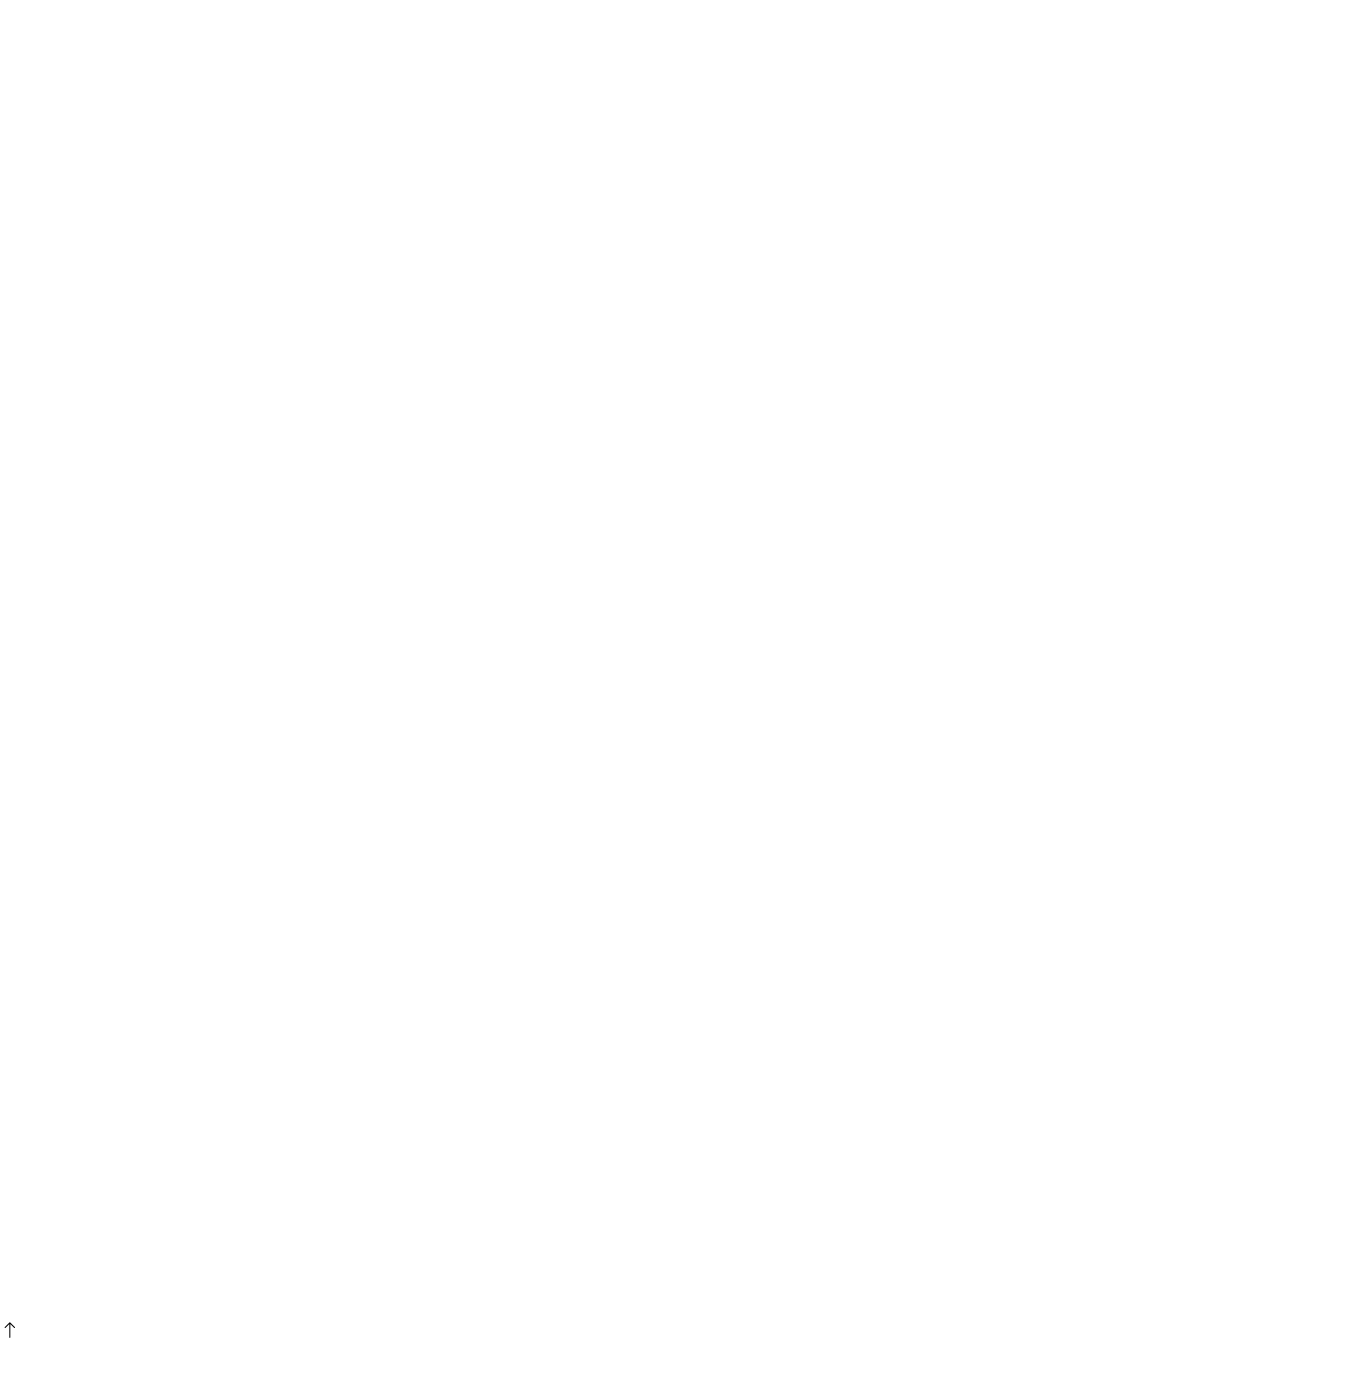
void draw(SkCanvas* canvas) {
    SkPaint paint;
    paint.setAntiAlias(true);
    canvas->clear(0xFFFFFFFF);
    canvas->drawImageRect(SkImages::DeferredFromEncodedData(SkData::MakeFromFileName("img1.png")), SkRect::MakeXYWH(4, 1322, 11, 16), SkSamplingOptions());
}
